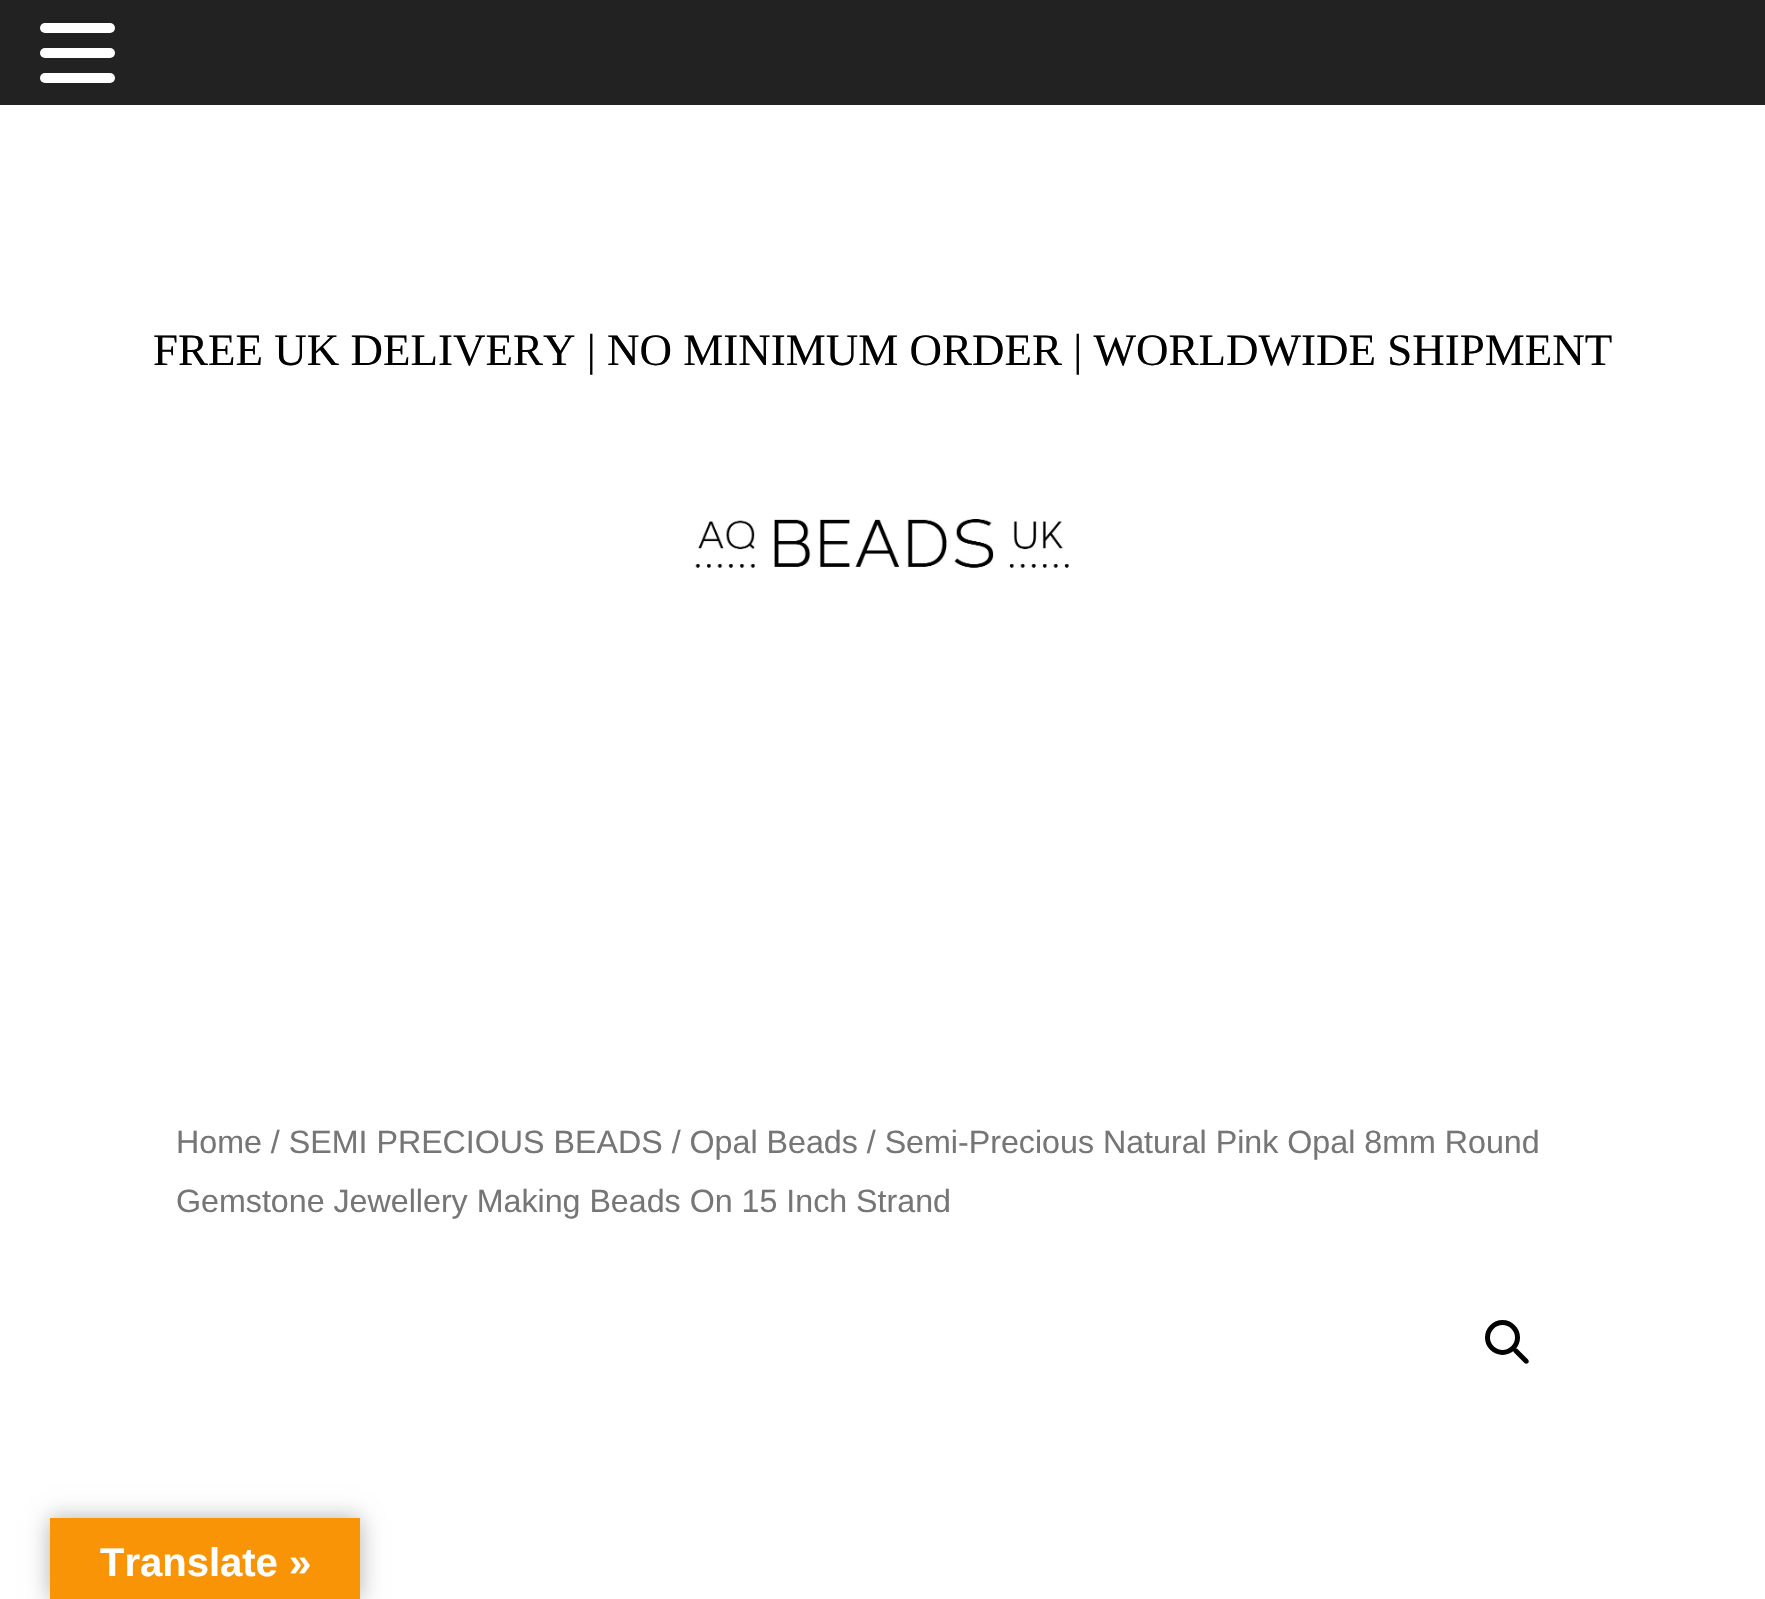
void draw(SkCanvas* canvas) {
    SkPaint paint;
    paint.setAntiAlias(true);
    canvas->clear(0xFFFFFFFF);
    paint.setColor(0xFF222222);
    canvas->drawRect(SkRect::MakeXYWH(0, 0, 1765, 105), paint);
    paint.setColor(0xFFFFFFFF);
    canvas->drawRoundRect(SkRect::MakeXYWH(40, 23, 75, 10), 5, 5, paint);
    canvas->drawRoundRect(SkRect::MakeXYWH(40, 48, 75, 10), 5, 5, paint);
    canvas->drawRoundRect(SkRect::MakeXYWH(40, 73, 75, 10), 5, 5, paint);
    SkFont font1(fontMgr->matchFamilyStyle("Liberation Serif", SkFontStyle::Normal()), 45);
    font1.setSubpixel(true);
    paint.setColor(0xFF000000);
    canvas->drawString("FREE UK DELIVERY | NO MINIMUM ORDER | WORLDWIDE SHIPMENT", 153, 365, font1, paint);
    canvas->drawImageRect(SkImages::DeferredFromEncodedData(SkData::MakeFromFileName("img1.png")), SkRect::MakeXYWH(695, 519, 374, 49), SkSamplingOptions());
    SkFont font2(fontMgr->matchFamilyStyle("Liberation Sans", SkFontStyle::Normal()), 32.2f);
    font2.setSubpixel(true);
    paint.setColor(0xFF767676);
    canvas->drawString("Home / SEMI PRECIOUS BEADS / Opal Beads / Semi-Precious Natural Pink Opal 8mm Round", 176, 1153, font2, paint);
    canvas->drawString("Gemstone Jewellery Making Beads On 15 Inch Strand", 176, 1212, font2, paint);
    paint.setStyle(SkPaint::kStroke_Style);
    paint.setStrokeWidth(5);
    paint.setColor(0xFF000000);
    canvas->drawCircle(1502.5f, 1337.5f, 15, paint);
    paint.setStyle(SkPaint::kFill_Style);
    canvas->drawPath(SkPathBuilder().moveTo(1514, 1349).cubicTo(1515, 1348, 1516.5f, 1348, 1517.5f, 1349).lineTo(1528, 1359.5f).cubicTo(1529, 1360.5f, 1529, 1362.5f, 1528, 1363).cubicTo(1527, 1364, 1525.5f, 1364, 1524.5f, 1363).lineTo(1514, 1352.5f).cubicTo(1513, 1351.5f, 1513, 1350, 1514, 1349).close().detach(), paint);
    paint.setColor(0x4D000000);
    paint.setMaskFilter(SkMaskFilter::MakeBlur(kNormal_SkBlurStyle, 11));
    canvas->drawRect(SkRect::MakeXYWH(50, 1518, 310, 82), paint);
    paint.setMaskFilter(nullptr);
    paint.setColor(0xFFF89406);
    canvas->drawRect(SkRect::MakeXYWH(50, 1518, 310, 81), paint);
    SkFont font3(fontMgr->matchFamilyStyle("Liberation Sans", SkFontStyle::Bold()), 40);
    font3.setSubpixel(true);
    paint.setColor(0xFFFFFFFF);
    canvas->drawString("Translate »", 100, 1576, font3, paint);
}
